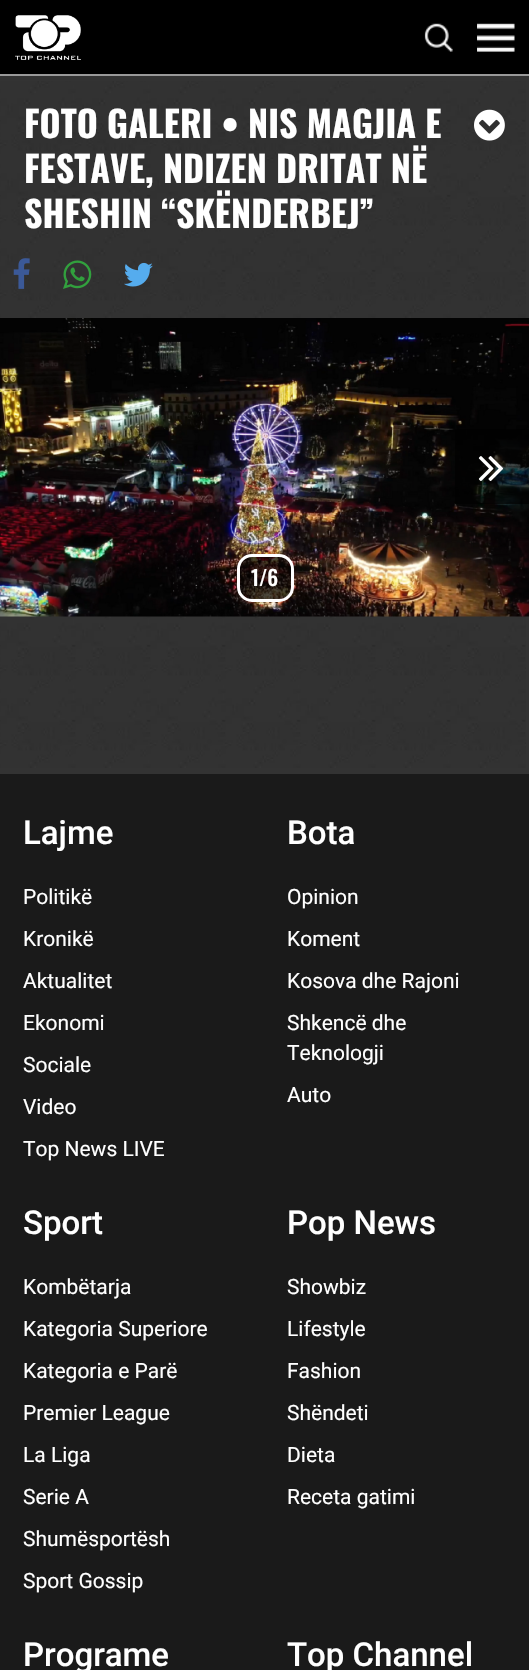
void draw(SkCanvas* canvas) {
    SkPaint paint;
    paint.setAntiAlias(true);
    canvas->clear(0xFF333333);
    paint.setColor(0xFF000000);
    canvas->drawRect(SkRect::MakeXYWH(0, 0, 529, 74), paint);
    paint.setColor(0xFF999999);
    canvas->drawRect(SkRect::MakeXYWH(0, 74, 529, 2), paint);
    canvas->drawImageRect(SkImages::DeferredFromEncodedData(SkData::MakeFromFileName("img1.png")), SkRect::MakeXYWH(15, 15, 66, 45), SkSamplingOptions());
    canvas->drawImageRect(SkImages::DeferredFromEncodedData(SkData::MakeFromFileName("img2.png")), SkRect::MakeXYWH(424, 23, 29, 29), SkSamplingOptions());
    canvas->drawImageRect(SkImages::DeferredFromEncodedData(SkData::MakeFromFileName("img3.png")), SkRect::MakeXYWH(477, 23, 38, 29), SkSamplingOptions());
    canvas->drawImageRect(SkImages::DeferredFromEncodedData(SkData::MakeFromFileName("img4.png")), SkRect::MakeXYWH(0, 81, 526, 687), SkSamplingOptions());
    SkFont font1(fontMgr->matchFamilyStyle("Oswald", SkFontStyle::Bold()), 36);
    font1.setSubpixel(true);
    paint.setColor(0xFFFFFFFF);
    canvas->drawString("FOTO GALERI • NIS MAGJIA E", 24, 138, font1, paint);
    canvas->drawImageRect(SkImages::DeferredFromEncodedData(SkData::MakeFromFileName("img5.png")), SkRect::MakeXYWH(474, 109, 31, 32), SkSamplingOptions());
    canvas->drawString("FESTAVE, NDIZEN DRITAT NË", 24, 183, font1, paint);
    canvas->drawString("SHESHIN “SKËNDERBEJ”", 24, 228, font1, paint);
    canvas->drawImageRect(SkImages::DeferredFromEncodedData(SkData::MakeFromFileName("img6.png")), SkRect::MakeXYWH(13, 258, 17, 31), SkSamplingOptions());
    canvas->drawImageRect(SkImages::DeferredFromEncodedData(SkData::MakeFromFileName("img7.png")), SkRect::MakeXYWH(63, 260, 29, 29), SkSamplingOptions());
    canvas->drawImageRect(SkImages::DeferredFromEncodedData(SkData::MakeFromFileName("img8.png")), SkRect::MakeXYWH(124, 262, 29, 25), SkSamplingOptions());
    canvas->drawImageRect(SkImages::DeferredFromEncodedData(SkData::MakeFromFileName("img9.png")), SkRect::MakeXYWH(0, 318, 529, 299), SkSamplingOptions());
    paint.setColor(0xB3000000);
    canvas->drawRect(SkRect::MakeXYWH(455, 429, 74, 75), paint);
    canvas->drawImageRect(SkImages::DeferredFromEncodedData(SkData::MakeFromFileName("img10.png")), SkRect::MakeXYWH(478, 456, 25, 25), SkSamplingOptions());
    canvas->drawRoundRect(SkRect::MakeXYWH(238.5f, 555.5f, 54, 45), 13.5f, 13.5f, paint);
    paint.setStyle(SkPaint::kStroke_Style);
    paint.setStrokeWidth(3);
    paint.setColor(0xFFFFFFFF);
    canvas->drawRoundRect(SkRect::MakeXYWH(238.5f, 555.5f, 54, 45), 13.5f, 13.5f, paint);
    SkFont font2(fontMgr->matchFamilyStyle("Oswald", SkFontStyle(500, SkFontStyle::kNormal_Width, SkFontStyle::kUpright_Slant)), 21);
    font2.setSubpixel(true);
    paint.setStyle(SkPaint::kFill_Style);
    canvas->drawString("1/6", 251, 586, font2, paint);
    paint.setColor(0xFF1A1A1A);
    canvas->drawRect(SkRect::MakeXYWH(0, 774, 529, 896), paint);
    SkFont font3(fontMgr->matchFamilyStyle("Roboto", SkFontStyle(500, SkFontStyle::kNormal_Width, SkFontStyle::kUpright_Slant)), 33);
    font3.setSubpixel(true);
    paint.setColor(0xFFFFFFFF);
    canvas->drawString("Lajme", 23, 844, font3, paint);
    SkFont font4(fontMgr->matchFamilyStyle("Roboto", SkFontStyle::Normal()), 21);
    font4.setSubpixel(true);
    canvas->drawString("Politikë", 23, 904, font4, paint);
    canvas->drawString("Kronikë", 23, 946, font4, paint);
    canvas->drawString("Aktualitet", 23, 988, font4, paint);
    canvas->drawString("Ekonomi", 23, 1030, font4, paint);
    canvas->drawString("Sociale", 23, 1072, font4, paint);
    canvas->drawString("Video", 23, 1114, font4, paint);
    canvas->drawString("Top News LIVE", 23, 1156, font4, paint);
    canvas->drawString("Bota", 287, 844, font3, paint);
    canvas->drawString("Opinion", 287, 904, font4, paint);
    canvas->drawString("Koment", 287, 946, font4, paint);
    canvas->drawString("Kosova dhe Rajoni", 287, 988, font4, paint);
    canvas->drawString("Shkencë dhe", 287, 1030, font4, paint);
    canvas->drawString("Teknologji", 287, 1060, font4, paint);
    canvas->drawString("Auto", 287, 1102, font4, paint);
    canvas->drawString("Sport", 23, 1234, font3, paint);
    canvas->drawString("Kombëtarja", 23, 1294, font4, paint);
    canvas->drawString("Kategoria Superiore", 23, 1336, font4, paint);
    canvas->drawString("Kategoria e Parë", 23, 1378, font4, paint);
    canvas->drawString("Premier League", 23, 1420, font4, paint);
    canvas->drawString("La Liga", 23, 1462, font4, paint);
    canvas->drawString("Serie A", 23, 1504, font4, paint);
    canvas->drawString("Shumësportësh", 23, 1546, font4, paint);
    canvas->drawString("Sport Gossip", 23, 1588, font4, paint);
    canvas->drawString("Pop News", 287, 1234, font3, paint);
    canvas->drawString("Showbiz", 287, 1294, font4, paint);
    canvas->drawString("Lifestyle", 287, 1336, font4, paint);
    canvas->drawString("Fashion", 287, 1378, font4, paint);
    canvas->drawString("Shëndeti", 287, 1420, font4, paint);
    canvas->drawString("Dieta", 287, 1462, font4, paint);
    canvas->drawString("Receta gatimi", 287, 1504, font4, paint);
    canvas->drawString("Programe", 23, 1666, font3, paint);
    canvas->drawString("Top Channel", 287, 1666, font3, paint);
}
